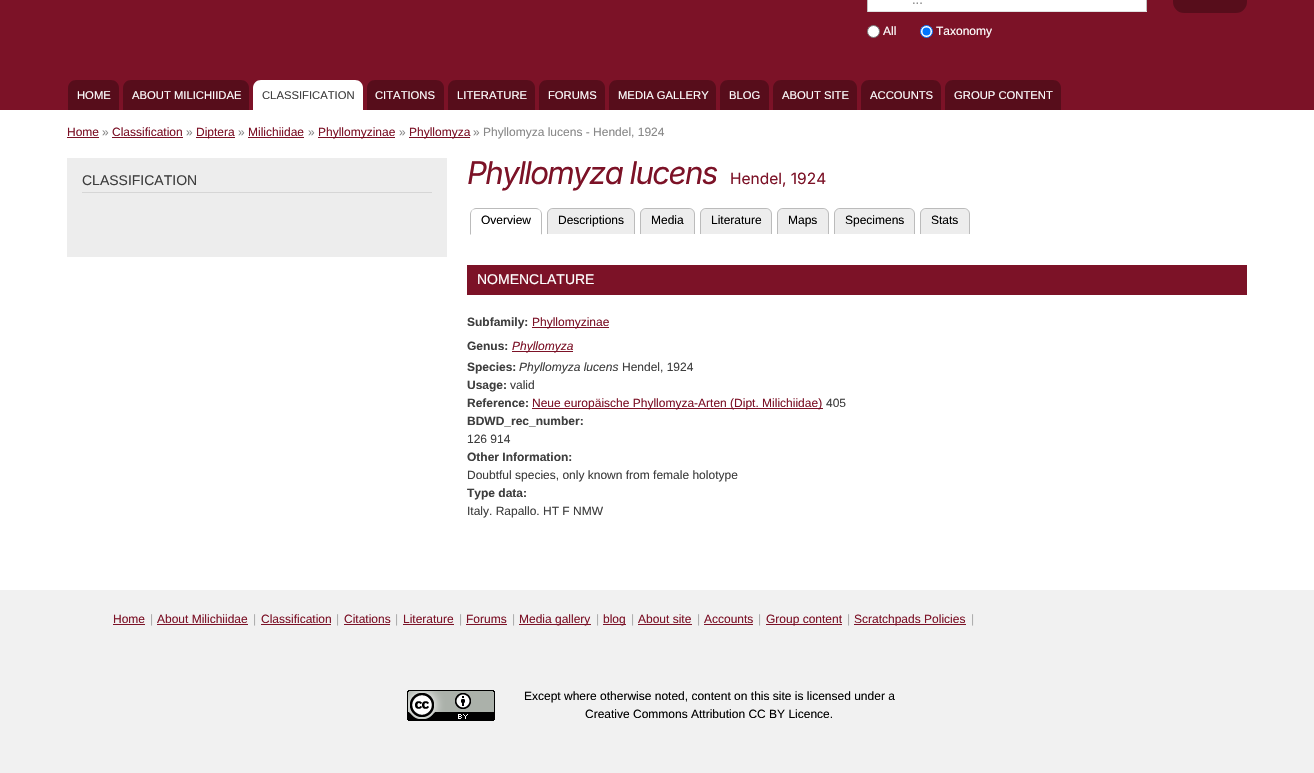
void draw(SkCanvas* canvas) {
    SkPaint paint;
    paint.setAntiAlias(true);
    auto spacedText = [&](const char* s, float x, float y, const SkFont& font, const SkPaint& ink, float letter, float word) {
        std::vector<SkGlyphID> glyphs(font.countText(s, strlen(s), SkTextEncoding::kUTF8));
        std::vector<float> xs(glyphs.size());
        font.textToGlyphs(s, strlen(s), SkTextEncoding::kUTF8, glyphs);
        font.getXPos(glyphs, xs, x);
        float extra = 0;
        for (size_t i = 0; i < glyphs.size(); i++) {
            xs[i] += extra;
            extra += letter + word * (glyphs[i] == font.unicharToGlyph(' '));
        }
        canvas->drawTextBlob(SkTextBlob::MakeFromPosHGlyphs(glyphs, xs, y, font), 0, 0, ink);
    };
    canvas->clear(0xFFFFFFFF);
    paint.setColor(0xFF7C1227);
    canvas->drawRect(SkRect::MakeXYWH(0, 0, 1314, 110), paint);
    paint.setColor(0xFFFFFFFF);
    canvas->drawRect(SkRect::MakeXYWH(868, 0, 278, 11), paint);
    paint.setColor(0xFFC1C1C1);
    canvas->drawRect(SkRect::MakeXYWH(1146, 0, 1, 12), paint);
    paint.setColor(0xFFE1E1E1);
    canvas->drawRect(SkRect::MakeXYWH(867, 11, 280, 1), paint);
    paint.setColor(0xFFC1C1C1);
    canvas->drawRect(SkRect::MakeXYWH(867, 0, 1, 12), paint);
    SkFont font1(fontMgr->matchFamilyStyle("Liberation Sans", SkFontStyle::Normal()), 13);
    font1.setSubpixel(true);
    paint.setColor(0xFF888888);
    canvas->drawString("...", 912, 4, font1, paint);
    paint.setColor(0xFF570D1B);
    canvas->drawRoundRect(SkRect::MakeXYWH(1173, -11, 74, 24), 11, 11, paint);
    paint.setColor(0xFFFFFFFF);
    canvas->drawCircle(873.5f, 31.5f, 6, paint);
    paint.setStyle(SkPaint::kStroke_Style);
    paint.setStrokeWidth(1);
    paint.setColor(0xFF767676);
    canvas->drawCircle(873.5f, 31.5f, 6, paint);
    SkFont font2(fontMgr->matchFamilyStyle("Liberation Sans", SkFontStyle::Normal()), 12);
    font2.setSubpixel(true);
    paint.setStyle(SkPaint::kFill_Style);
    paint.setColor(0xFFFFFFFF);
    canvas->drawString("All", 883, 35, font2, paint);
    canvas->drawCircle(926.5f, 31.5f, 6, paint);
    paint.setStyle(SkPaint::kStroke_Style);
    paint.setColor(0xFF0075FF);
    canvas->drawCircle(926.5f, 31.5f, 6, paint);
    paint.setStyle(SkPaint::kFill_Style);
    canvas->drawCircle(926.5f, 31.5f, 4, paint);
    paint.setColor(0xFFFFFFFF);
    canvas->drawString("Taxonomy", 936, 35, font2, paint);
    paint.setColor(0xFF570D1B);
    canvas->drawPath(SkPathBuilder().moveTo(76, 80).lineTo(111, 80).cubicTo(115.5f, 80, 119, 83.5f, 119, 88).lineTo(119, 110).lineTo(68, 110).lineTo(68, 88).cubicTo(68, 83.5f, 71.5f, 80, 76, 80).close().detach(), paint);
    SkFont font3(fontMgr->matchFamilyStyle("Liberation Sans", SkFontStyle::Normal()), 11.25f);
    font3.setSubpixel(true);
    paint.setColor(0xFFFFFFFF);
    canvas->drawString("HOME", 77, 99, font3, paint);
    paint.setColor(0xFF570D1B);
    canvas->drawPath(SkPathBuilder().moveTo(131, 80).lineTo(241, 80).cubicTo(245.5f, 80, 249, 83.5f, 249, 88).lineTo(249, 110).lineTo(123, 110).lineTo(123, 88).cubicTo(123, 83.5f, 126.5f, 80, 131, 80).close().detach(), paint);
    paint.setColor(0xFFFFFFFF);
    canvas->drawString("ABOUT MILICHIIDAE", 132, 99, font3, paint);
    canvas->drawPath(SkPathBuilder().moveTo(261, 80).lineTo(355, 80).cubicTo(359.5f, 80, 363, 83.5f, 363, 88).lineTo(363, 110).lineTo(253, 110).lineTo(253, 88).cubicTo(253, 83.5f, 256.5f, 80, 261, 80).close().detach(), paint);
    paint.setColor(0xFF3E3E3E);
    canvas->drawString("CLASSIFICATION", 262, 99, font3, paint);
    paint.setColor(0xFF570D1B);
    canvas->drawPath(SkPathBuilder().moveTo(375, 80).lineTo(436, 80).cubicTo(440.5f, 80, 444, 83.5f, 444, 88).lineTo(444, 110).lineTo(367, 110).lineTo(367, 88).cubicTo(367, 83.5f, 370.5f, 80, 375, 80).close().detach(), paint);
    paint.setColor(0xFFFFFFFF);
    canvas->drawString("CITATIONS", 375, 99, font3, paint);
    paint.setColor(0xFF570D1B);
    canvas->drawPath(SkPathBuilder().moveTo(456, 80).lineTo(527, 80).cubicTo(531.5f, 80, 535, 83.5f, 535, 88).lineTo(535, 110).lineTo(448, 110).lineTo(448, 88).cubicTo(448, 83.5f, 451.5f, 80, 456, 80).close().detach(), paint);
    paint.setColor(0xFFFFFFFF);
    canvas->drawString("LITERATURE", 457, 99, font3, paint);
    paint.setColor(0xFF570D1B);
    canvas->drawPath(SkPathBuilder().moveTo(547, 80).lineTo(597, 80).cubicTo(601.5f, 80, 605, 83.5f, 605, 88).lineTo(605, 110).lineTo(539, 110).lineTo(539, 88).cubicTo(539, 83.5f, 542.5f, 80, 547, 80).close().detach(), paint);
    paint.setColor(0xFFFFFFFF);
    canvas->drawString("FORUMS", 548, 99, font3, paint);
    paint.setColor(0xFF570D1B);
    canvas->drawPath(SkPathBuilder().moveTo(617, 80).lineTo(708, 80).cubicTo(712.5f, 80, 716, 83.5f, 716, 88).lineTo(716, 110).lineTo(609, 110).lineTo(609, 88).cubicTo(609, 83.5f, 612.5f, 80, 617, 80).close().detach(), paint);
    paint.setColor(0xFFFFFFFF);
    canvas->drawString("MEDIA GALLERY", 618, 99, font3, paint);
    paint.setColor(0xFF570D1B);
    canvas->drawPath(SkPathBuilder().moveTo(728, 80).lineTo(761, 80).cubicTo(765.5f, 80, 769, 83.5f, 769, 88).lineTo(769, 110).lineTo(720, 110).lineTo(720, 88).cubicTo(720, 83.5f, 723.5f, 80, 728, 80).close().detach(), paint);
    paint.setColor(0xFFFFFFFF);
    canvas->drawString("BLOG", 729, 99, font3, paint);
    paint.setColor(0xFF570D1B);
    canvas->drawPath(SkPathBuilder().moveTo(781, 80).lineTo(849, 80).cubicTo(853.5f, 80, 857, 83.5f, 857, 88).lineTo(857, 110).lineTo(773, 110).lineTo(773, 88).cubicTo(773, 83.5f, 776.5f, 80, 781, 80).close().detach(), paint);
    paint.setColor(0xFFFFFFFF);
    canvas->drawString("ABOUT SITE", 782, 99, font3, paint);
    paint.setColor(0xFF570D1B);
    canvas->drawPath(SkPathBuilder().moveTo(869, 80).lineTo(933, 80).cubicTo(937.5f, 80, 941, 83.5f, 941, 88).lineTo(941, 110).lineTo(861, 110).lineTo(861, 88).cubicTo(861, 83.5f, 864.5f, 80, 869, 80).close().detach(), paint);
    paint.setColor(0xFFFFFFFF);
    canvas->drawString("ACCOUNTS", 870, 99, font3, paint);
    paint.setColor(0xFF570D1B);
    canvas->drawPath(SkPathBuilder().moveTo(953, 80).lineTo(1053, 80).cubicTo(1057.5f, 80, 1061, 83.5f, 1061, 88).lineTo(1061, 110).lineTo(945, 110).lineTo(945, 88).cubicTo(945, 83.5f, 948.5f, 80, 953, 80).close().detach(), paint);
    paint.setColor(0xFFFFFFFF);
    canvas->drawString("GROUP CONTENT", 954, 99, font3, paint);
    paint.setColor(0xFF7C1227);
    canvas->drawString("Home", 67, 136, font2, paint);
    canvas->drawRect(SkRect::MakeXYWH(67, 137, 32, 1), paint);
    paint.setColor(0xFF888888);
    canvas->drawString("»", 102, 136, font2, paint);
    paint.setColor(0xFF7C1227);
    canvas->drawString("Classification", 112, 136, font2, paint);
    canvas->drawRect(SkRect::MakeXYWH(112, 137, 71, 1), paint);
    paint.setColor(0xFF888888);
    canvas->drawString("»", 186, 136, font2, paint);
    paint.setColor(0xFF7C1227);
    canvas->drawRect(SkRect::MakeXYWH(196, 137, 39, 1), paint);
    canvas->drawString("Diptera", 196, 136, font2, paint);
    paint.setColor(0xFF888888);
    canvas->drawString("»", 238, 136, font2, paint);
    paint.setColor(0xFF7C1227);
    canvas->drawString("Milichiidae", 248, 136, font2, paint);
    canvas->drawRect(SkRect::MakeXYWH(248, 137, 56, 1), paint);
    paint.setColor(0xFF888888);
    canvas->drawString("»", 308, 136, font2, paint);
    paint.setColor(0xFF7C1227);
    canvas->drawRect(SkRect::MakeXYWH(318, 137, 77, 1), paint);
    canvas->drawString("Phyllomyzinae", 318, 136, font2, paint);
    paint.setColor(0xFF888888);
    canvas->drawString("»", 399, 136, font2, paint);
    paint.setColor(0xFF7C1227);
    canvas->drawRect(SkRect::MakeXYWH(409, 137, 61, 1), paint);
    canvas->drawString("Phyllomyza", 409, 136, font2, paint);
    paint.setColor(0xFF888888);
    canvas->drawString("» Phyllomyza lucens - Hendel, 1924", 473, 136, font2, paint);
    paint.setColor(0xFFEDEDED);
    canvas->drawRect(SkRect::MakeXYWH(67, 158, 380, 99), paint);
    paint.setColor(0xFFD6D6D6);
    canvas->drawRect(SkRect::MakeXYWH(82, 192, 350, 1), paint);
    SkFont font4(fontMgr->matchFamilyStyle("Liberation Sans", SkFontStyle::Normal()), 14);
    font4.setSubpixel(true);
    paint.setColor(0xFF3E3E3E);
    canvas->drawString("CLASSIFICATION", 82, 185, font4, paint);
    SkFont font5(fontMgr->matchFamilyStyle("Inter", SkFontStyle::Italic()), 31.25f);
    font5.setSubpixel(true);
    paint.setColor(0xFF7C1227);
    spacedText("Phyllomyza lucens", 467, 184, font5, paint, -1.6f, 0);
    SkFont font6(fontMgr->matchFamilyStyle("Inter", SkFontStyle::Normal()), 15.5f);
    font6.setSubpixel(true);
    canvas->drawString("Hendel, 1924", 730, 184, font6, paint);
    paint.setColor(0xFFBBBBBB);
    canvas->drawPath(SkPathBuilder().moveTo(476, 208).cubicTo(474, 208, 473, 209, 472, 210).cubicTo(473, 210, 474, 209, 476, 209).lineTo(536, 209).cubicTo(538, 209, 539, 210, 540, 210).cubicTo(539, 209, 538, 208, 536, 208).close().detach(), paint);
    canvas->drawPath(SkPathBuilder().moveTo(542, 235).lineTo(542, 214).cubicTo(542, 212.5f, 541, 211, 540, 210).lineTo(539.5f, 210.5f).cubicTo(540.5f, 211, 541, 212.5f, 541, 214).lineTo(541, 234).close().detach(), paint);
    paint.setColor(0xFFFFFFFF);
    canvas->drawPath(SkPathBuilder().moveTo(542, 235).lineTo(541, 234).lineTo(471, 234).lineTo(470, 235).close().detach(), paint);
    paint.setColor(0xFFBBBBBB);
    canvas->drawPath(SkPathBuilder().moveTo(470, 235).lineTo(471, 234).lineTo(471, 214).cubicTo(471, 212.5f, 471.5f, 211, 472.5f, 210.5f).lineTo(472, 210).cubicTo(471, 211, 470, 212.5f, 470, 214).close().detach(), paint);
    paint.setColor(0xFF000000);
    canvas->drawString("Overview", 481, 224, font2, paint);
    paint.setColor(0xFFEDEDED);
    canvas->drawPath(SkPathBuilder().moveTo(553, 208).lineTo(629, 208).cubicTo(632.5f, 208, 635, 210.5f, 635, 214).lineTo(635, 234).lineTo(547, 234).lineTo(547, 214).cubicTo(547, 210.5f, 549.5f, 208, 553, 208).close().detach(), paint);
    paint.setColor(0xFFBBBBBB);
    canvas->drawPath(SkPathBuilder(SkPathFillType::kEvenOdd).moveTo(553, 208).lineTo(629, 208).cubicTo(632, 208, 635, 211, 635, 214).lineTo(635, 234).lineTo(547, 234).lineTo(547, 214).cubicTo(547, 211, 550, 208, 553, 208).close().moveTo(553, 209).lineTo(629, 209).cubicTo(632, 209, 634, 211, 634, 214).lineTo(634, 234).lineTo(548, 234).lineTo(548, 214).cubicTo(548, 211, 550, 209, 553, 209).close().detach(), paint);
    paint.setColor(0xFF000000);
    canvas->drawString("Descriptions", 558, 224, font2, paint);
    paint.setColor(0xFFEDEDED);
    canvas->drawPath(SkPathBuilder().moveTo(646, 208).lineTo(689, 208).cubicTo(692.5f, 208, 695, 210.5f, 695, 214).lineTo(695, 234).lineTo(640, 234).lineTo(640, 214).cubicTo(640, 210.5f, 642.5f, 208, 646, 208).close().detach(), paint);
    paint.setColor(0xFFBBBBBB);
    canvas->drawPath(SkPathBuilder(SkPathFillType::kEvenOdd).moveTo(646, 208).lineTo(689, 208).cubicTo(692, 208, 695, 211, 695, 214).lineTo(695, 234).lineTo(640, 234).lineTo(640, 214).cubicTo(640, 211, 643, 208, 646, 208).close().moveTo(646, 209).lineTo(689, 209).cubicTo(692, 209, 694, 211, 694, 214).lineTo(694, 234).lineTo(641, 234).lineTo(641, 214).cubicTo(641, 211, 643, 209, 646, 209).close().detach(), paint);
    paint.setColor(0xFF000000);
    canvas->drawString("Media", 651, 224, font2, paint);
    paint.setColor(0xFFEDEDED);
    canvas->drawPath(SkPathBuilder().moveTo(706, 208).lineTo(766, 208).cubicTo(769.5f, 208, 772, 210.5f, 772, 214).lineTo(772, 234).lineTo(700, 234).lineTo(700, 214).cubicTo(700, 210.5f, 702.5f, 208, 706, 208).close().detach(), paint);
    paint.setColor(0xFFBBBBBB);
    canvas->drawPath(SkPathBuilder(SkPathFillType::kEvenOdd).moveTo(706, 208).lineTo(766, 208).cubicTo(769, 208, 772, 211, 772, 214).lineTo(772, 234).lineTo(700, 234).lineTo(700, 214).cubicTo(700, 211, 703, 208, 706, 208).close().moveTo(706, 209).lineTo(766, 209).cubicTo(769, 209, 771, 211, 771, 214).lineTo(771, 234).lineTo(701, 234).lineTo(701, 214).cubicTo(701, 211, 703, 209, 706, 209).close().detach(), paint);
    paint.setColor(0xFF000000);
    canvas->drawString("Literature", 711, 224, font2, paint);
    paint.setColor(0xFFEDEDED);
    canvas->drawPath(SkPathBuilder().moveTo(783, 208).lineTo(823, 208).cubicTo(826.5f, 208, 829, 210.5f, 829, 214).lineTo(829, 234).lineTo(777, 234).lineTo(777, 214).cubicTo(777, 210.5f, 779.5f, 208, 783, 208).close().detach(), paint);
    paint.setColor(0xFFBBBBBB);
    canvas->drawPath(SkPathBuilder(SkPathFillType::kEvenOdd).moveTo(783, 208).lineTo(823, 208).cubicTo(826, 208, 829, 211, 829, 214).lineTo(829, 234).lineTo(777, 234).lineTo(777, 214).cubicTo(777, 211, 780, 208, 783, 208).close().moveTo(783, 209).lineTo(823, 209).cubicTo(826, 209, 828, 211, 828, 214).lineTo(828, 234).lineTo(778, 234).lineTo(778, 214).cubicTo(778, 211, 780, 209, 783, 209).close().detach(), paint);
    paint.setColor(0xFF000000);
    canvas->drawString("Maps", 788, 224, font2, paint);
    paint.setColor(0xFFEDEDED);
    canvas->drawPath(SkPathBuilder().moveTo(840, 208).lineTo(909, 208).cubicTo(912.5f, 208, 915, 210.5f, 915, 214).lineTo(915, 234).lineTo(834, 234).lineTo(834, 214).cubicTo(834, 210.5f, 836.5f, 208, 840, 208).close().detach(), paint);
    paint.setColor(0xFFBBBBBB);
    canvas->drawPath(SkPathBuilder(SkPathFillType::kEvenOdd).moveTo(840, 208).lineTo(909, 208).cubicTo(912, 208, 915, 211, 915, 214).lineTo(915, 234).lineTo(834, 234).lineTo(834, 214).cubicTo(834, 211, 837, 208, 840, 208).close().moveTo(840, 209).lineTo(909, 209).cubicTo(912, 209, 914, 211, 914, 214).lineTo(914, 234).lineTo(835, 234).lineTo(835, 214).cubicTo(835, 211, 837, 209, 840, 209).close().detach(), paint);
    paint.setColor(0xFF000000);
    canvas->drawString("Specimens", 845, 224, font2, paint);
    paint.setColor(0xFFEDEDED);
    canvas->drawPath(SkPathBuilder().moveTo(926, 208).lineTo(964, 208).cubicTo(967.5f, 208, 970, 210.5f, 970, 214).lineTo(970, 234).lineTo(920, 234).lineTo(920, 214).cubicTo(920, 210.5f, 922.5f, 208, 926, 208).close().detach(), paint);
    paint.setColor(0xFFBBBBBB);
    canvas->drawPath(SkPathBuilder(SkPathFillType::kEvenOdd).moveTo(926, 208).lineTo(964, 208).cubicTo(967, 208, 970, 211, 970, 214).lineTo(970, 234).lineTo(920, 234).lineTo(920, 214).cubicTo(920, 211, 923, 208, 926, 208).close().moveTo(926, 209).lineTo(964, 209).cubicTo(967, 209, 969, 211, 969, 214).lineTo(969, 234).lineTo(921, 234).lineTo(921, 214).cubicTo(921, 211, 923, 209, 926, 209).close().detach(), paint);
    paint.setColor(0xFF000000);
    canvas->drawString("Stats", 931, 224, font2, paint);
    paint.setColor(0xFF7C1227);
    canvas->drawRect(SkRect::MakeXYWH(467, 265, 780, 30), paint);
    paint.setColor(0xFFFFFFFF);
    canvas->drawString("NOMENCLATURE", 477, 284, font4, paint);
    SkFont font7(fontMgr->matchFamilyStyle("Liberation Sans", SkFontStyle::Bold()), 12);
    font7.setSubpixel(true);
    paint.setColor(0xFF3E3E3E);
    canvas->drawString("Subfamily:", 467, 326, font7, paint);
    paint.setColor(0xFF7C1227);
    canvas->drawRect(SkRect::MakeXYWH(532, 327, 77, 1), paint);
    canvas->drawString("Phyllomyzinae", 532, 326, font2, paint);
    paint.setColor(0xFF3E3E3E);
    canvas->drawString("Genus:", 467, 350, font7, paint);
    paint.setColor(0xFF7C1227);
    canvas->drawRect(SkRect::MakeXYWH(512, 351, 61, 1), paint);
    SkFont font8(fontMgr->matchFamilyStyle("Liberation Sans", SkFontStyle::Italic()), 12);
    font8.setSubpixel(true);
    canvas->drawString("Phyllomyza", 512, 350, font8, paint);
    paint.setColor(0xFF3E3E3E);
    canvas->drawString("Species:", 467, 371, font7, paint);
    canvas->drawString("Phyllomyza lucens", 519, 371, font8, paint);
    canvas->drawString("Hendel, 1924", 622, 371, font2, paint);
    canvas->drawString("Usage:", 467, 389, font7, paint);
    canvas->drawString("valid", 510, 389, font2, paint);
    canvas->drawString("Reference:", 467, 407, font7, paint);
    paint.setColor(0xFF7C1227);
    canvas->drawRect(SkRect::MakeXYWH(532, 408, 291, 1), paint);
    canvas->drawString("Neue europäische Phyllomyza-Arten (Dipt. Milichiidae)", 532, 407, font2, paint);
    paint.setColor(0xFF3E3E3E);
    canvas->drawString("405", 826, 407, font2, paint);
    canvas->drawString("BDWD_rec_number:", 467, 425, font7, paint);
    canvas->drawString("126 914", 467, 443, font2, paint);
    canvas->drawString("Other Information:", 467, 461, font7, paint);
    canvas->drawString("Doubtful species, only known from female holotype", 467, 479, font2, paint);
    canvas->drawString("Type data:", 467, 497, font7, paint);
    canvas->drawString("Italy. Rapallo. HT F NMW", 467, 515, font2, paint);
    paint.setColor(0xFFF1F1F1);
    canvas->drawRect(SkRect::MakeXYWH(0, 590, 1314, 183), paint);
    paint.setColor(0xFF7C1227);
    canvas->drawString("Home", 113, 623, font2, paint);
    canvas->drawRect(SkRect::MakeXYWH(113, 624, 32, 1), paint);
    paint.setColor(0xFFACACAC);
    canvas->drawString("|", 150, 623, font2, paint);
    paint.setColor(0xFF7C1227);
    canvas->drawString("About Milichiidae", 157, 623, font2, paint);
    canvas->drawRect(SkRect::MakeXYWH(157, 624, 91, 1), paint);
    paint.setColor(0xFFACACAC);
    canvas->drawString("|", 253, 623, font2, paint);
    paint.setColor(0xFF7C1227);
    canvas->drawString("Classification", 261, 623, font2, paint);
    canvas->drawRect(SkRect::MakeXYWH(261, 624, 70, 1), paint);
    paint.setColor(0xFFACACAC);
    canvas->drawString("|", 336, 623, font2, paint);
    paint.setColor(0xFF7C1227);
    canvas->drawString("Citations", 344, 623, font2, paint);
    canvas->drawRect(SkRect::MakeXYWH(344, 624, 46, 1), paint);
    paint.setColor(0xFFACACAC);
    canvas->drawString("|", 395, 623, font2, paint);
    paint.setColor(0xFF7C1227);
    canvas->drawString("Literature", 403, 623, font2, paint);
    canvas->drawRect(SkRect::MakeXYWH(403, 624, 51, 1), paint);
    paint.setColor(0xFFACACAC);
    canvas->drawString("|", 459, 623, font2, paint);
    paint.setColor(0xFF7C1227);
    canvas->drawString("Forums", 466, 623, font2, paint);
    canvas->drawRect(SkRect::MakeXYWH(466, 624, 41, 1), paint);
    paint.setColor(0xFFACACAC);
    canvas->drawString("|", 512, 623, font2, paint);
    paint.setColor(0xFF7C1227);
    canvas->drawRect(SkRect::MakeXYWH(519, 624, 72, 1), paint);
    canvas->drawString("Media gallery", 519, 623, font2, paint);
    paint.setColor(0xFFACACAC);
    canvas->drawString("|", 596, 623, font2, paint);
    paint.setColor(0xFF7C1227);
    canvas->drawRect(SkRect::MakeXYWH(603, 624, 23, 1), paint);
    canvas->drawString("blog", 603, 623, font2, paint);
    paint.setColor(0xFFACACAC);
    canvas->drawString("|", 631, 623, font2, paint);
    paint.setColor(0xFF7C1227);
    canvas->drawString("About site", 638, 623, font2, paint);
    canvas->drawRect(SkRect::MakeXYWH(638, 624, 54, 1), paint);
    paint.setColor(0xFFACACAC);
    canvas->drawString("|", 697, 623, font2, paint);
    paint.setColor(0xFF7C1227);
    canvas->drawString("Accounts", 704, 623, font2, paint);
    canvas->drawRect(SkRect::MakeXYWH(704, 624, 49, 1), paint);
    paint.setColor(0xFFACACAC);
    canvas->drawString("|", 758, 623, font2, paint);
    paint.setColor(0xFF7C1227);
    canvas->drawRect(SkRect::MakeXYWH(766, 624, 76, 1), paint);
    canvas->drawString("Group content", 766, 623, font2, paint);
    paint.setColor(0xFFACACAC);
    canvas->drawString("|", 847, 623, font2, paint);
    paint.setColor(0xFF7C1227);
    canvas->drawRect(SkRect::MakeXYWH(854, 624, 112, 1), paint);
    canvas->drawString("Scratchpads Policies", 854, 623, font2, paint);
    paint.setColor(0xFFACACAC);
    canvas->drawString("|", 971, 623, font2, paint);
    canvas->drawImageRect(SkImages::DeferredFromEncodedData(SkData::MakeFromFileName("img1.png")), SkRect::MakeXYWH(407, 690, 88, 31), SkSamplingOptions());
    paint.setColor(0xFF000000);
    canvas->drawString("Except where otherwise noted, content on this site is licensed under a", 524, 700, font2, paint);
    canvas->drawString("Creative Commons Attribution CC BY Licence.", 585, 718, font2, paint);
}
